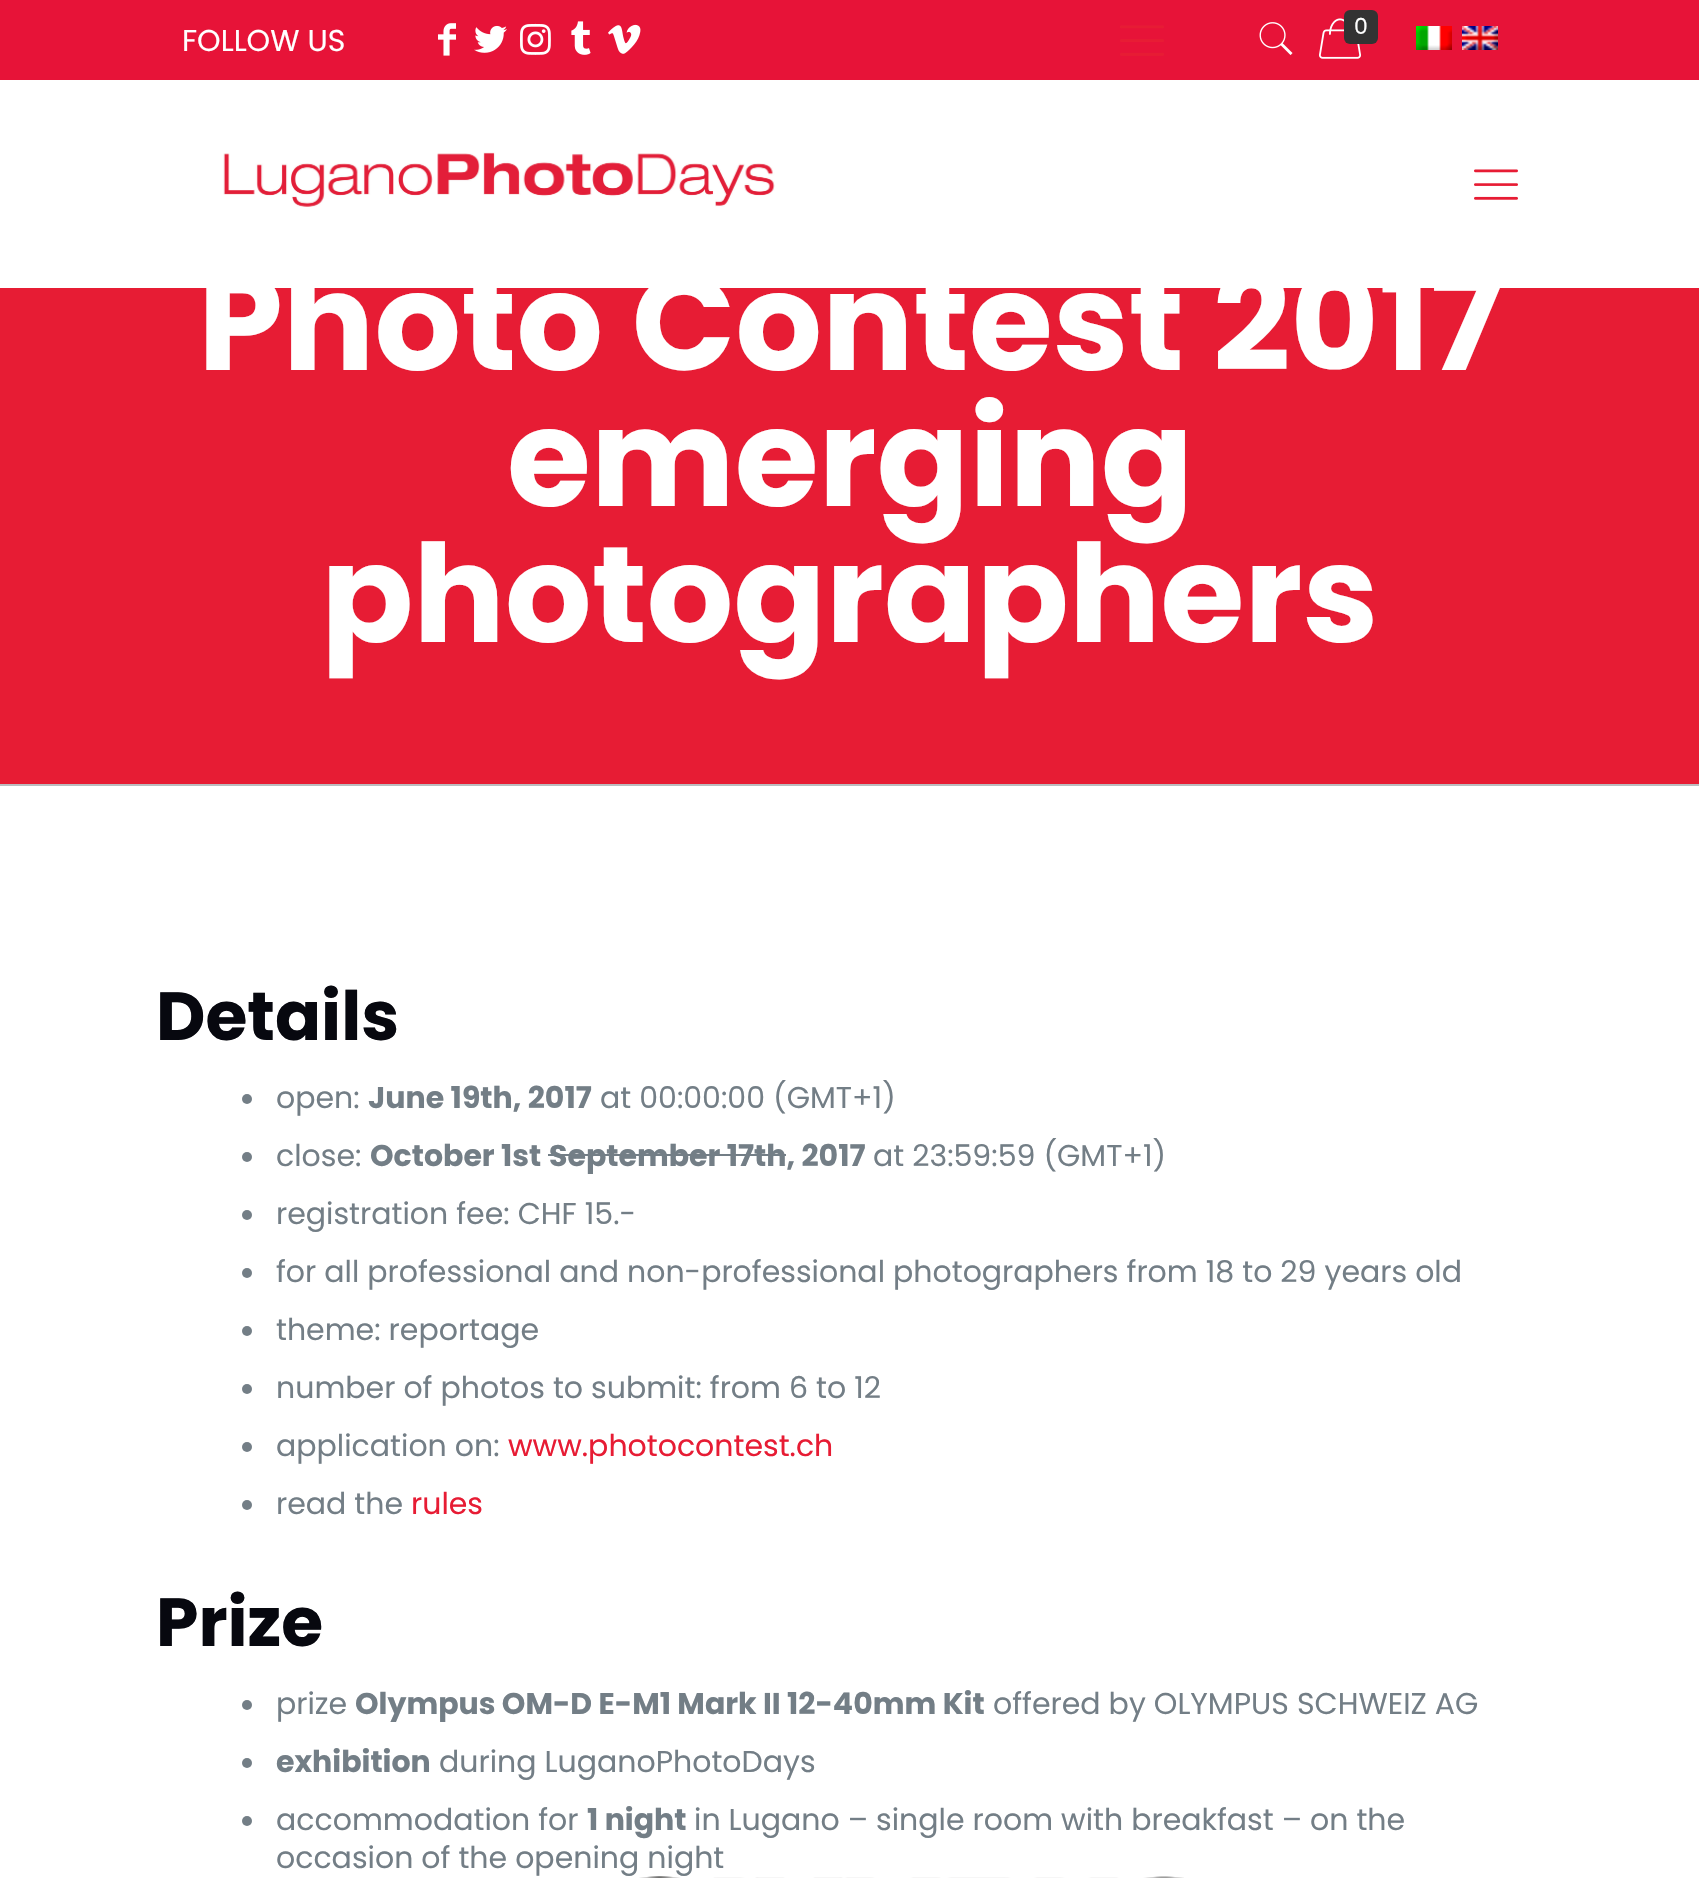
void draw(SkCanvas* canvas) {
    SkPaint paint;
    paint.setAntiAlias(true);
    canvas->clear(0xFFFFFFFF);
    paint.setColor(0xFFE71338);
    canvas->drawRect(SkRect::MakeXYWH(0, 0, 1699, 80), paint);
    canvas->drawImageRect(SkImages::DeferredFromEncodedData(SkData::MakeFromFileName("img1.png")), SkRect::MakeXYWH(1120, 25, 44, 31), SkSamplingOptions());
    canvas->drawImageRect(SkImages::DeferredFromEncodedData(SkData::MakeFromFileName("img2.png")), SkRect::MakeXYWH(1259, 22, 34, 33), SkSamplingOptions());
    canvas->drawImageRect(SkImages::DeferredFromEncodedData(SkData::MakeFromFileName("img3.png")), SkRect::MakeXYWH(1319, 18, 42, 41), SkSamplingOptions());
    paint.setColor(0xFF333333);
    canvas->drawRoundRect(SkRect::MakeXYWH(1344, 10, 34, 34), 6, 6, paint);
    SkFont font1(fontMgr->matchFamilyStyle("Poppins", SkFontStyle::Normal()), 22);
    font1.setSubpixel(true);
    paint.setColor(0xFFFFFFFF);
    canvas->drawString("0", 1354, 34, font1, paint);
    canvas->drawImageRect(SkImages::DeferredFromEncodedData(SkData::MakeFromFileName("img4.png")), SkRect::MakeXYWH(1416, 26, 36, 24), SkSamplingOptions());
    canvas->drawImageRect(SkImages::DeferredFromEncodedData(SkData::MakeFromFileName("img5.png")), SkRect::MakeXYWH(1462, 26, 36, 24), SkSamplingOptions());
    SkFont font2(fontMgr->matchFamilyStyle("Poppins", SkFontStyle::Normal()), 30);
    font2.setSubpixel(true);
    canvas->drawString("FOLLOW US", 182, 51, font2, paint);
    canvas->drawImageRect(SkImages::DeferredFromEncodedData(SkData::MakeFromFileName("img6.png")), SkRect::MakeXYWH(438, 23, 18, 33), SkSamplingOptions());
    canvas->drawImageRect(SkImages::DeferredFromEncodedData(SkData::MakeFromFileName("img7.png")), SkRect::MakeXYWH(474, 25, 33, 28), SkSamplingOptions());
    canvas->drawImageRect(SkImages::DeferredFromEncodedData(SkData::MakeFromFileName("img8.png")), SkRect::MakeXYWH(520, 23, 31, 32), SkSamplingOptions());
    canvas->drawImageRect(SkImages::DeferredFromEncodedData(SkData::MakeFromFileName("img9.png")), SkRect::MakeXYWH(571, 21, 20, 34), SkSamplingOptions());
    canvas->drawImageRect(SkImages::DeferredFromEncodedData(SkData::MakeFromFileName("img10.png")), SkRect::MakeXYWH(608, 24, 33, 30), SkSamplingOptions());
    canvas->drawImageRect(SkImages::DeferredFromEncodedData(SkData::MakeFromFileName("img11.png")), SkRect::MakeXYWH(223, 152, 552, 55), SkSamplingOptions());
    canvas->drawImageRect(SkImages::DeferredFromEncodedData(SkData::MakeFromFileName("img12.png")), SkRect::MakeXYWH(1474, 169, 44, 31), SkSamplingOptions());
    paint.setColor(0xFFE71C34);
    canvas->drawRect(SkRect::MakeXYWH(0, 288, 1699, 496), paint);
    paint.setColor(0xFFBBBCBF);
    canvas->drawRect(SkRect::MakeXYWH(0, 784, 1699, 2), paint);
    SkFont font3(fontMgr->matchFamilyStyle("Poppins", SkFontStyle::Bold()), 136);
    font3.setSubpixel(true);
    paint.setColor(0xFFFFFFFF);
    canvas->drawString("Photo Contest 2017", 198, 370, font3, paint);
    canvas->drawString("emerging", 507, 506, font3, paint);
    canvas->drawString("photographers", 321, 642, font3, paint);
    SkFont font4(fontMgr->matchFamilyStyle("Poppins", SkFontStyle::Bold()), 68);
    font4.setSubpixel(true);
    paint.setColor(0xFF07080F);
    canvas->drawString("Details", 156, 1040, font4, paint);
    paint.setColor(0xFF737E86);
    canvas->drawCircle(247, 1099, 5, paint);
    canvas->drawString("open:", 276, 1108, font2, paint);
    SkFont font5(fontMgr->matchFamilyStyle("Poppins", SkFontStyle::Bold()), 30);
    font5.setSubpixel(true);
    canvas->drawString("June 19th, 2017", 368, 1108, font5, paint);
    canvas->drawString("at 00:00:00 (GMT+1)", 600, 1108, font2, paint);
    canvas->drawCircle(247, 1157, 5, paint);
    canvas->drawString("close:", 276, 1166, font2, paint);
    canvas->drawString("October 1st", 370, 1166, font5, paint);
    canvas->drawString("September 17th, 2017", 549, 1166, font5, paint);
    canvas->drawRect(SkRect::MakeXYWH(548, 1154, 238, 2), paint);
    canvas->drawString("at 23:59:59 (GMT+1)", 873, 1166, font2, paint);
    canvas->drawCircle(247, 1215, 5, paint);
    canvas->drawString("registration fee: CHF 15.-", 276, 1224, font2, paint);
    canvas->drawCircle(247, 1273, 5, paint);
    canvas->drawString("for all professional and non-professional photographers from 18 to 29 years old", 276, 1282, font2, paint);
    canvas->drawCircle(247, 1331, 5, paint);
    canvas->drawString("theme: reportage", 276, 1340, font2, paint);
    canvas->drawCircle(247, 1389, 5, paint);
    canvas->drawString("number of photos to submit: from 6 to 12", 276, 1398, font2, paint);
    canvas->drawCircle(247, 1447, 5, paint);
    canvas->drawString("application on:", 276, 1456, font2, paint);
    paint.setColor(0xFFE71C34);
    canvas->drawString("www.photocontest.ch", 508, 1456, font2, paint);
    paint.setColor(0xFF737E86);
    canvas->drawCircle(247, 1505, 5, paint);
    canvas->drawString("read the", 276, 1514, font2, paint);
    paint.setColor(0xFFE71C34);
    canvas->drawString("rules", 411, 1514, font2, paint);
    paint.setColor(0xFF07080F);
    canvas->drawString("Prize", 156, 1646, font4, paint);
    paint.setColor(0xFF737E86);
    canvas->drawCircle(247, 1705, 5, paint);
    canvas->drawString("prize", 276, 1714, font2, paint);
    canvas->drawString("Olympus OM-D E-M1 Mark II 12-40mm Kit", 355, 1714, font5, paint);
    canvas->drawString("offered by OLYMPUS SCHWEIZ AG", 993, 1714, font2, paint);
    canvas->drawCircle(247, 1763, 5, paint);
    canvas->drawString("exhibition", 276, 1772, font5, paint);
    canvas->drawString("during LuganoPhotoDays", 439, 1772, font2, paint);
    canvas->drawCircle(247, 1821, 5, paint);
    canvas->drawString("accommodation for", 276, 1830, font2, paint);
    canvas->drawString("1 night", 587, 1830, font5, paint);
    canvas->drawString("in Lugano – single room with breakfast – on the", 694, 1830, font2, paint);
    canvas->drawString("occasion of the opening night", 276, 1868, font2, paint);
    canvas->drawImageRect(SkImages::DeferredFromEncodedData(SkData::MakeFromFileName("img13.png")), SkRect::MakeXYWH(639, 1876, 545, 2), SkSamplingOptions());
}
